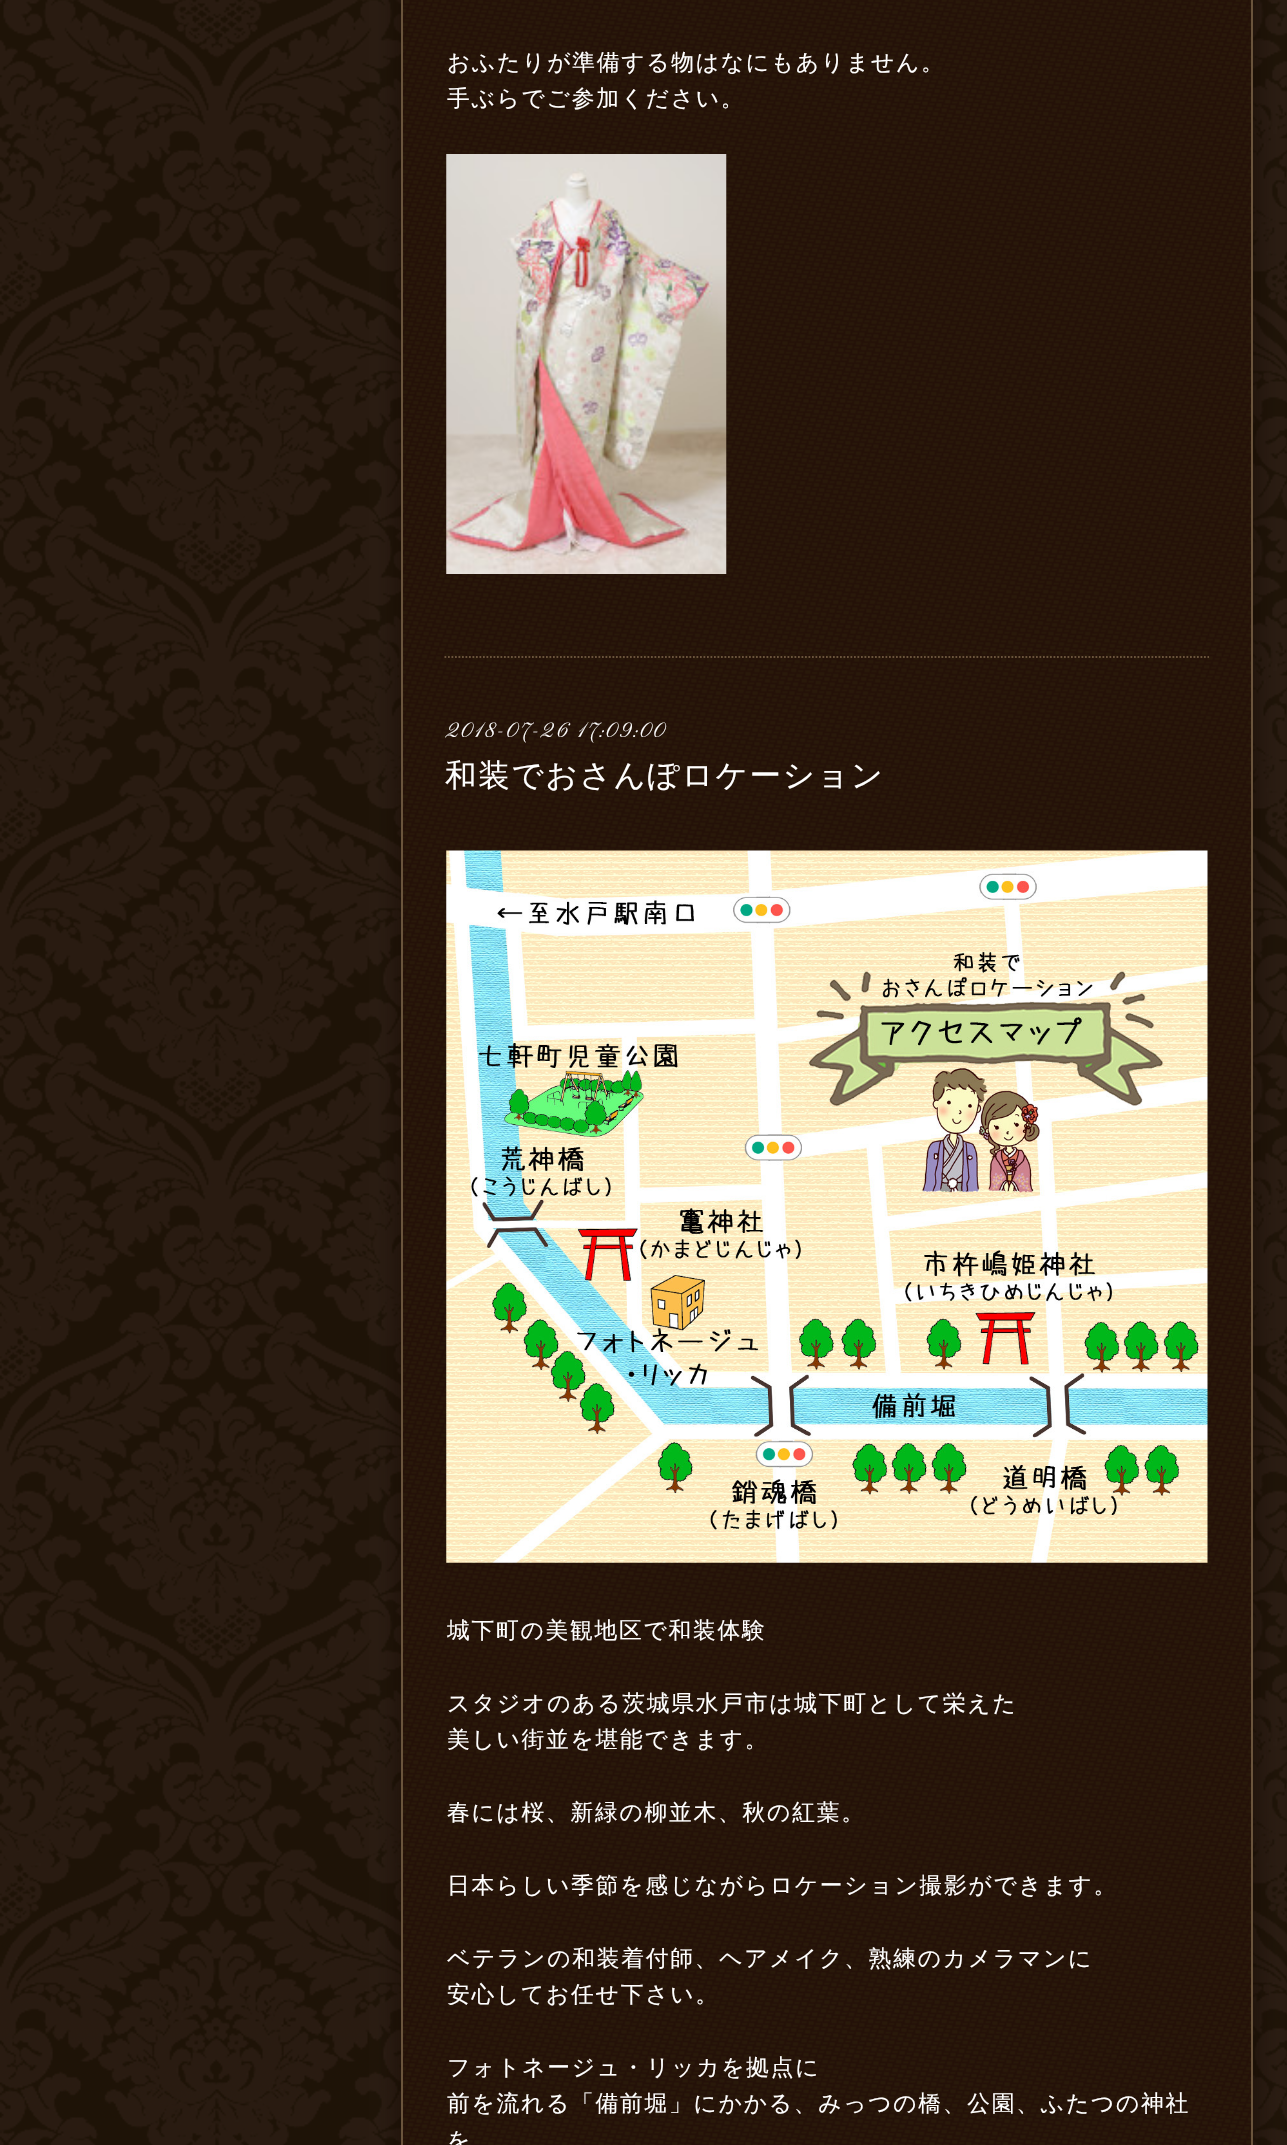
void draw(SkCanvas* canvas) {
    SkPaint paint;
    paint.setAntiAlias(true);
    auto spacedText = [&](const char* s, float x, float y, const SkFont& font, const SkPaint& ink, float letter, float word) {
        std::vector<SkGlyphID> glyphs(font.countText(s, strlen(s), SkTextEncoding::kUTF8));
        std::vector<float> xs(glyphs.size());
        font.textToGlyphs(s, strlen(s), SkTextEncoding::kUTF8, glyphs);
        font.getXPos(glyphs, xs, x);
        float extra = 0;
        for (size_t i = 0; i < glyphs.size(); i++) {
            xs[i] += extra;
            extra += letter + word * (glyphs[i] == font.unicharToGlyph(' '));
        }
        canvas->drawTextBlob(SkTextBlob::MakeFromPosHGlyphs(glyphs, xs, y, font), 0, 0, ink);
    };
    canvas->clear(0xFF1E1307);
    canvas->drawImageRect(SkImages::DeferredFromEncodedData(SkData::MakeFromFileName("img1.png")), SkRect::MakeXYWH(0, 0, 1287, 2145), SkSamplingOptions());
    paint.setColor(0x80140802);
    paint.setMaskFilter(SkMaskFilter::MakeBlur(kNormal_SkBlurStyle, 9));
    canvas->drawRect(SkRect::MakeXYWH(396, -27, 862, 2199), paint);
    paint.setMaskFilter(nullptr);
    paint.setColor(0xFF29190A);
    canvas->drawRect(SkRect::MakeXYWH(403, 0, 848, 2145), paint);
    canvas->drawImageRect(SkImages::DeferredFromEncodedData(SkData::MakeFromFileName("img2.png")), SkRect::MakeXYWH(403, 0, 848, 2145), SkSamplingOptions());
    paint.setStyle(SkPaint::kStroke_Style);
    paint.setStrokeWidth(2);
    paint.setColor(0xFF6A543C);
    canvas->drawRect(SkRect::MakeXYWH(402, -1, 850, 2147), paint);
    paint.setStrokeWidth(1.8f);
    paint.setPathEffect(SkDashPathEffect::Make({{1.75f, 1.75f}}, 0));
    canvas->drawPath(SkPathBuilder().moveTo(444.5f, 657).lineTo(1209, 657).detach(), paint);
    paint.setPathEffect(nullptr);
    SkFont font1(fontMgr->matchFamilyStyle("WenQuanYi Zen Hei", SkFontStyle(500, SkFontStyle::kNormal_Width, SkFontStyle::kUpright_Slant)), 22.75f);
    font1.setSubpixel(true);
    paint.setStyle(SkPaint::kFill_Style);
    paint.setColor(0xFFFFFFFF);
    spacedText("おふたりが準備する物はなにもありません。", 447, 70, font1, paint, 1.75f, 0);
    spacedText("手ぶらでご参加ください。", 447, 106, font1, paint, 1.75f, 0);
    canvas->drawImageRect(SkImages::DeferredFromEncodedData(SkData::MakeFromFileName("img3.png")), SkRect::MakeXYWH(446, 154, 281, 420), SkSamplingOptions());
    SkFont font2(fontMgr->matchFamilyStyle("Pinyon Script", SkFontStyle::Normal()), 21);
    font2.setSubpixel(true);
    spacedText("2018-07-26 17:09:00", 445, 737, font2, paint, 1.75f, 0);
    SkFont font3(fontMgr->matchFamilyStyle("WenQuanYi Zen Hei", SkFontStyle(500, SkFontStyle::kNormal_Width, SkFontStyle::kUpright_Slant)), 31.5f);
    font3.setSubpixel(true);
    spacedText("和装でおさんぽロケーション", 445, 786, font3, paint, 1.75f, 0);
    canvas->drawImageRect(SkImages::DeferredFromEncodedData(SkData::MakeFromFileName("img4.png")), SkRect::MakeXYWH(446, 850, 762, 713), SkSamplingOptions());
    spacedText("城下町の美観地区で和装体験", 447, 1638, font1, paint, 1.75f, 0);
    spacedText("スタジオのある茨城県水戸市は城下町として栄えた", 447, 1711, font1, paint, 1.75f, 0);
    spacedText("美しい街並を堪能できます。", 447, 1747, font1, paint, 1.75f, 0);
    spacedText("春には桜、新緑の柳並木、秋の紅葉。", 447, 1820, font1, paint, 1.75f, 0);
    spacedText("日本らしい季節を感じながらロケーション撮影ができます。", 447, 1893, font1, paint, 1.75f, 0);
    spacedText("ベテランの和装着付師、ヘアメイク、熟練のカメラマンに", 447, 1966, font1, paint, 1.75f, 0);
    spacedText("安心してお任せ下さい。", 447, 2002, font1, paint, 1.75f, 0);
    spacedText("フォトネージュ・リッカを拠点に", 447, 2075, font1, paint, 1.75f, 0);
    spacedText("前を流れる「備前堀」にかかる、みっつの橋、公園、ふたつの神社", 447, 2111, font1, paint, 1.75f, 0);
    spacedText("を", 447, 2148, font1, paint, 1.75f, 0);
}
